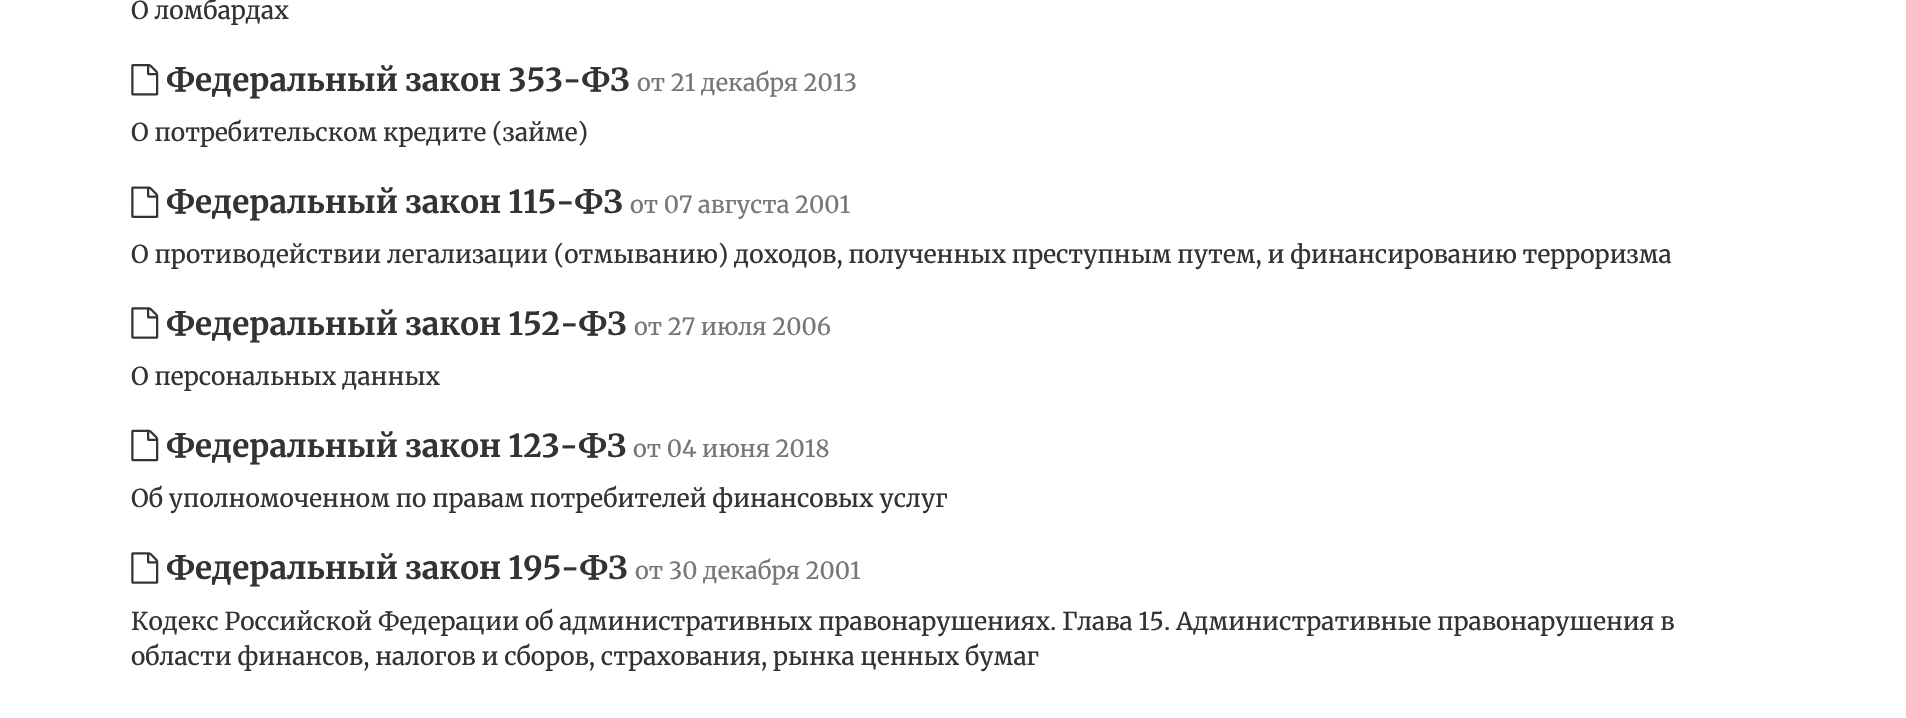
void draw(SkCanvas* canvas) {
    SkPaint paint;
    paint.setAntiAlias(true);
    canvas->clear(0xFFFFFFFF);
    SkFont font1(fontMgr->matchFamilyStyle("Merriweather", SkFontStyle::Normal()), 24.5f);
    font1.setSubpixel(true);
    paint.setColor(0xFF333333);
    canvas->drawString("О ломбардах", 131, 19, font1, paint);
    canvas->drawImageRect(SkImages::DeferredFromEncodedData(SkData::MakeFromFileName("img1.png")), SkRect::MakeXYWH(131, 64, 28, 32), SkSamplingOptions());
    SkFont font2(fontMgr->matchFamilyStyle("Merriweather", SkFontStyle::Bold()), 31.5f);
    font2.setSubpixel(true);
    canvas->drawString("Федеральный закон 353-ФЗ", 166, 91, font2, paint);
    SkFont font3(fontMgr->matchFamilyStyle("Merriweather", SkFontStyle::Normal()), 23.6f);
    font3.setSubpixel(true);
    paint.setColor(0xFF777777);
    canvas->drawString("от 21 декабря 2013", 637, 91, font3, paint);
    paint.setColor(0xFF333333);
    canvas->drawString("О потребительском кредите (займе)", 131, 141, font1, paint);
    canvas->drawImageRect(SkImages::DeferredFromEncodedData(SkData::MakeFromFileName("img2.png")), SkRect::MakeXYWH(131, 186, 28, 32), SkSamplingOptions());
    canvas->drawString("Федеральный закон 115-ФЗ", 166, 213, font2, paint);
    paint.setColor(0xFF777777);
    canvas->drawString("от 07 августа 2001", 630, 213, font3, paint);
    paint.setColor(0xFF333333);
    canvas->drawString("О противодействии легализации (отмыванию) доходов, полученных преступным путем, и финансированию терроризма", 131, 263, font1, paint);
    canvas->drawImageRect(SkImages::DeferredFromEncodedData(SkData::MakeFromFileName("img3.png")), SkRect::MakeXYWH(131, 307, 28, 32), SkSamplingOptions());
    canvas->drawString("Федеральный закон 152-ФЗ", 166, 335, font2, paint);
    paint.setColor(0xFF777777);
    canvas->drawString("от 27 июля 2006", 634, 335, font3, paint);
    paint.setColor(0xFF333333);
    canvas->drawString("О персональных данных", 131, 385, font1, paint);
    canvas->drawImageRect(SkImages::DeferredFromEncodedData(SkData::MakeFromFileName("img4.png")), SkRect::MakeXYWH(131, 429, 28, 33), SkSamplingOptions());
    canvas->drawString("Федеральный закон 123-ФЗ", 166, 457, font2, paint);
    paint.setColor(0xFF777777);
    canvas->drawString("от 04 июня 2018", 633, 457, font3, paint);
    paint.setColor(0xFF333333);
    canvas->drawString("Об уполномоченном по правам потребителей финансовых услуг", 131, 507, font1, paint);
    canvas->drawImageRect(SkImages::DeferredFromEncodedData(SkData::MakeFromFileName("img3.png")), SkRect::MakeXYWH(131, 552, 28, 32), SkSamplingOptions());
    canvas->drawString("Федеральный закон 195-ФЗ", 166, 579, font2, paint);
    paint.setColor(0xFF777777);
    canvas->drawString("от 30 декабря 2001", 635, 579, font3, paint);
    paint.setColor(0xFF333333);
    canvas->drawString("Кодекс Российской Федерации об административных правонарушениях. Глава 15. Административные правонарушения в", 131, 630, font1, paint);
    canvas->drawString("области финансов, налогов и сборов, страхования, рынка ценных бумаг", 131, 665, font1, paint);
}
